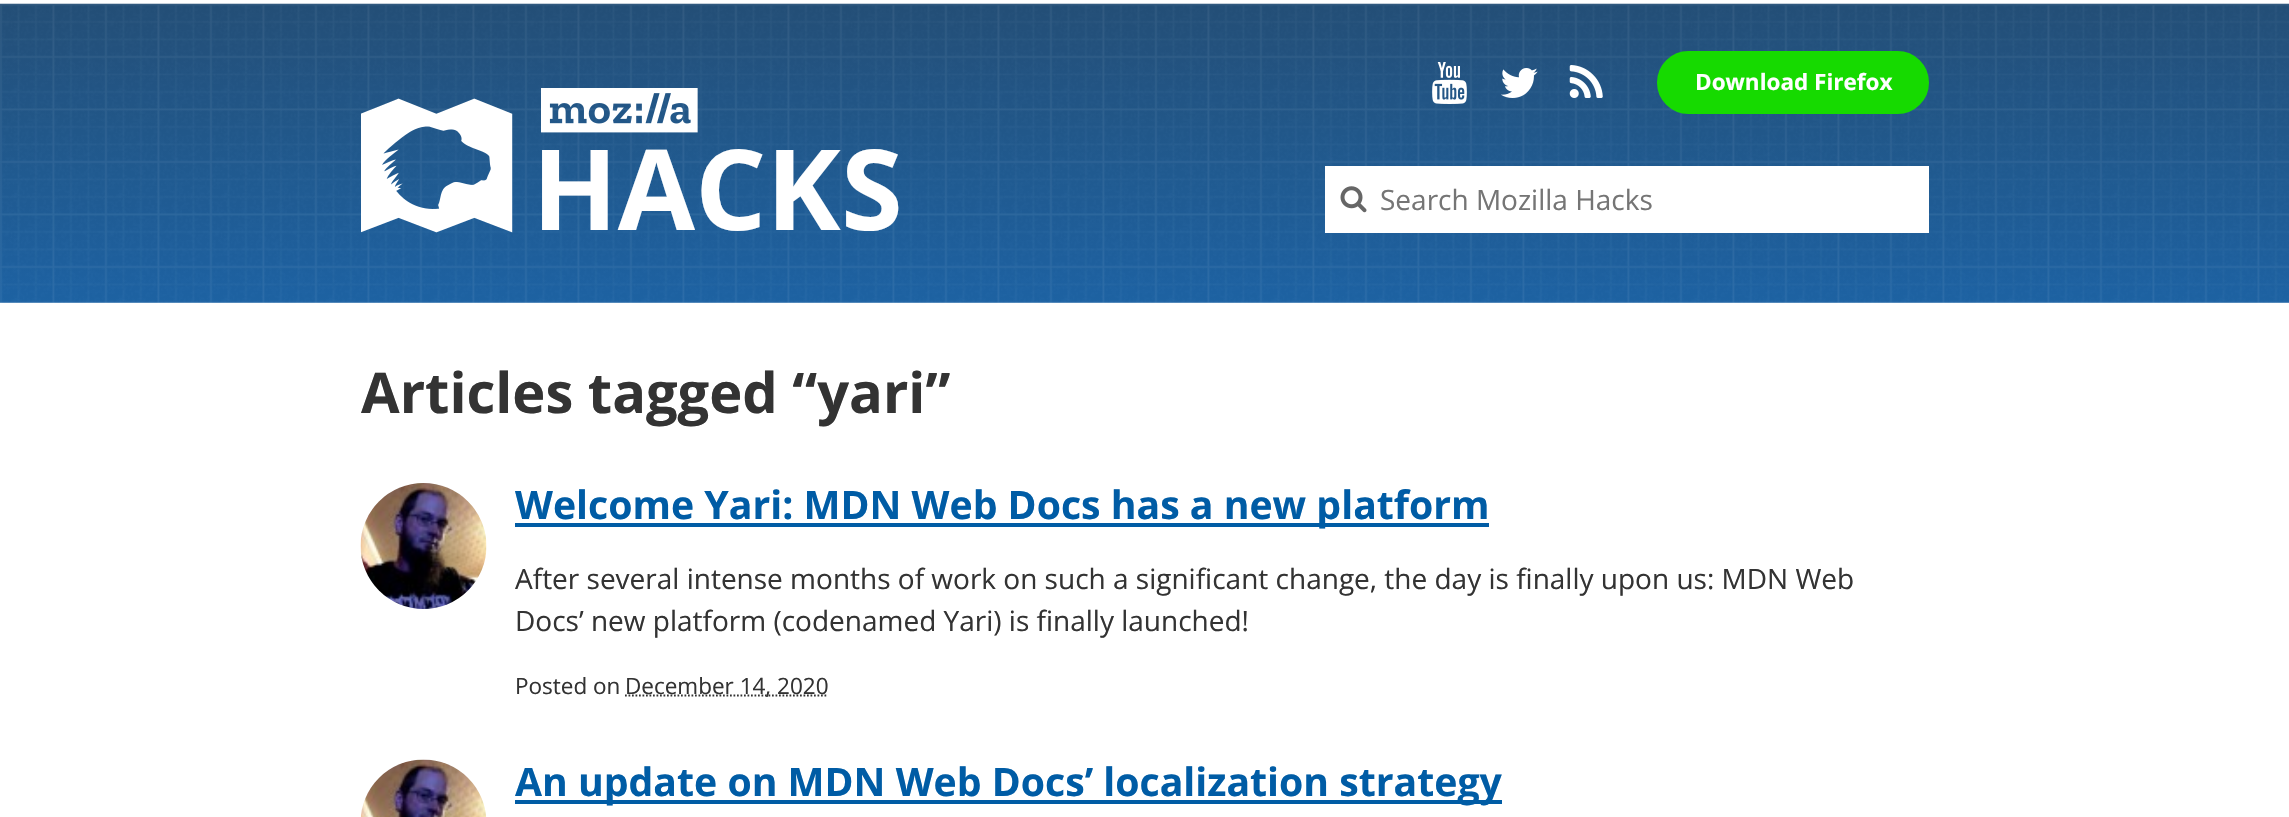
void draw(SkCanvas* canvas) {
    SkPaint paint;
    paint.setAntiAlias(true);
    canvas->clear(0xFFFFFFFF);
    canvas->drawImageRect(SkImages::DeferredFromEncodedData(SkData::MakeFromFileName("img1.png")), SkRect::MakeXYWH(0, 3, 2289, 300), SkSamplingOptions());
    canvas->drawImageRect(SkImages::DeferredFromEncodedData(SkData::MakeFromFileName("img2.png")), SkRect::MakeXYWH(1432, 62, 35, 42), SkSamplingOptions());
    canvas->drawImageRect(SkImages::DeferredFromEncodedData(SkData::MakeFromFileName("img3.png")), SkRect::MakeXYWH(1501, 68, 37, 30), SkSamplingOptions());
    canvas->drawImageRect(SkImages::DeferredFromEncodedData(SkData::MakeFromFileName("img4.png")), SkRect::MakeXYWH(1569, 65, 34, 33), SkSamplingOptions());
    paint.setColor(0xFF16DA00);
    canvas->drawRoundRect(SkRect::MakeXYWH(1659, 53, 268, 59), 29.5f, 29.5f, paint);
    paint.setStyle(SkPaint::kStroke_Style);
    paint.setStrokeWidth(4);
    canvas->drawRoundRect(SkRect::MakeXYWH(1659, 53, 268, 59), 29.5f, 29.5f, paint);
    SkFont font1(fontMgr->matchFamilyStyle("Open Sans", SkFontStyle::Bold()), 22.5f);
    font1.setSubpixel(true);
    paint.setStyle(SkPaint::kFill_Style);
    paint.setColor(0xFFFFFFFF);
    canvas->drawString("Download Firefox", 1695, 90, font1, paint);
    canvas->drawImageRect(SkImages::DeferredFromEncodedData(SkData::MakeFromFileName("img5.png")), SkRect::MakeXYWH(361, 98, 152, 135), SkSamplingOptions());
    canvas->drawImageRect(SkImages::DeferredFromEncodedData(SkData::MakeFromFileName("img6.png")), SkRect::MakeXYWH(541, 88, 157, 45), SkSamplingOptions());
    SkFont font2(fontMgr->matchFamilyStyle("Open Sans", SkFontStyle::Bold()), 112);
    font2.setSubpixel(true);
    canvas->drawString("HACK", 532, 230, font2, paint);
    canvas->drawString("S", 841, 230, font2, paint);
    canvas->drawRect(SkRect::MakeXYWH(1325, 166, 604, 67), paint);
    canvas->drawImageRect(SkImages::DeferredFromEncodedData(SkData::MakeFromFileName("img7.png")), SkRect::MakeXYWH(1340, 186, 27, 27), SkSamplingOptions());
    SkFont font3(fontMgr->matchFamilyStyle("Open Sans", SkFontStyle::Normal()), 28);
    font3.setSubpixel(true);
    paint.setColor(0xFF757575);
    canvas->drawString("Search Mozilla Hacks", 1380, 210, font3, paint);
    SkFont font4(fontMgr->matchFamilyStyle("Open Sans", SkFontStyle::Bold()), 56);
    font4.setSubpixel(true);
    paint.setColor(0xFF333333);
    canvas->drawString("Articles tagged “yari”", 361, 413, font4, paint);
    canvas->drawImageRect(SkImages::DeferredFromEncodedData(SkData::MakeFromFileName("img8.png")), SkRect::MakeXYWH(360, 483, 127, 126), SkSamplingOptions());
    paint.setColor(0xFF005CA5);
    canvas->drawRect(SkRect::MakeXYWH(515, 523, 974, 4), paint);
    SkFont font5(fontMgr->matchFamilyStyle("Open Sans", SkFontStyle::Bold()), 39.2f);
    font5.setSubpixel(true);
    canvas->drawString("Welcome Yari: MDN Web Docs has a new platform", 515, 519, font5, paint);
    paint.setColor(0xFF333333);
    canvas->drawString("After several intense months of work on such a significant change, the day is finally upon us: MDN Web", 515, 589, font3, paint);
    canvas->drawString("Docs’ new platform (codenamed Yari) is finally launched!", 515, 631, font3, paint);
    SkFont font6(fontMgr->matchFamilyStyle("Open Sans", SkFontStyle::Normal()), 22.5f);
    font6.setSubpixel(true);
    canvas->drawString("Posted on", 515, 694, font6, paint);
    paint.setStyle(SkPaint::kStroke_Style);
    paint.setStrokeWidth(1.8f);
    paint.setPathEffect(SkDashPathEffect::Make({{1.75f, 1.75f}}, 0));
    canvas->drawPath(SkPathBuilder().moveTo(625, 695.5f).lineTo(828, 695.5f).detach(), paint);
    paint.setPathEffect(nullptr);
    paint.setStyle(SkPaint::kFill_Style);
    canvas->drawString("December 14, 2020", 625, 694, font6, paint);
    canvas->drawImageRect(SkImages::DeferredFromEncodedData(SkData::MakeFromFileName("img9.png")), SkRect::MakeXYWH(360, 759, 127, 58), SkSamplingOptions());
    paint.setColor(0xFF005CA5);
    canvas->drawRect(SkRect::MakeXYWH(515, 800, 987, 4), paint);
    canvas->drawString("An update on MDN Web Docs’ localization strategy", 515, 796, font5, paint);
}
